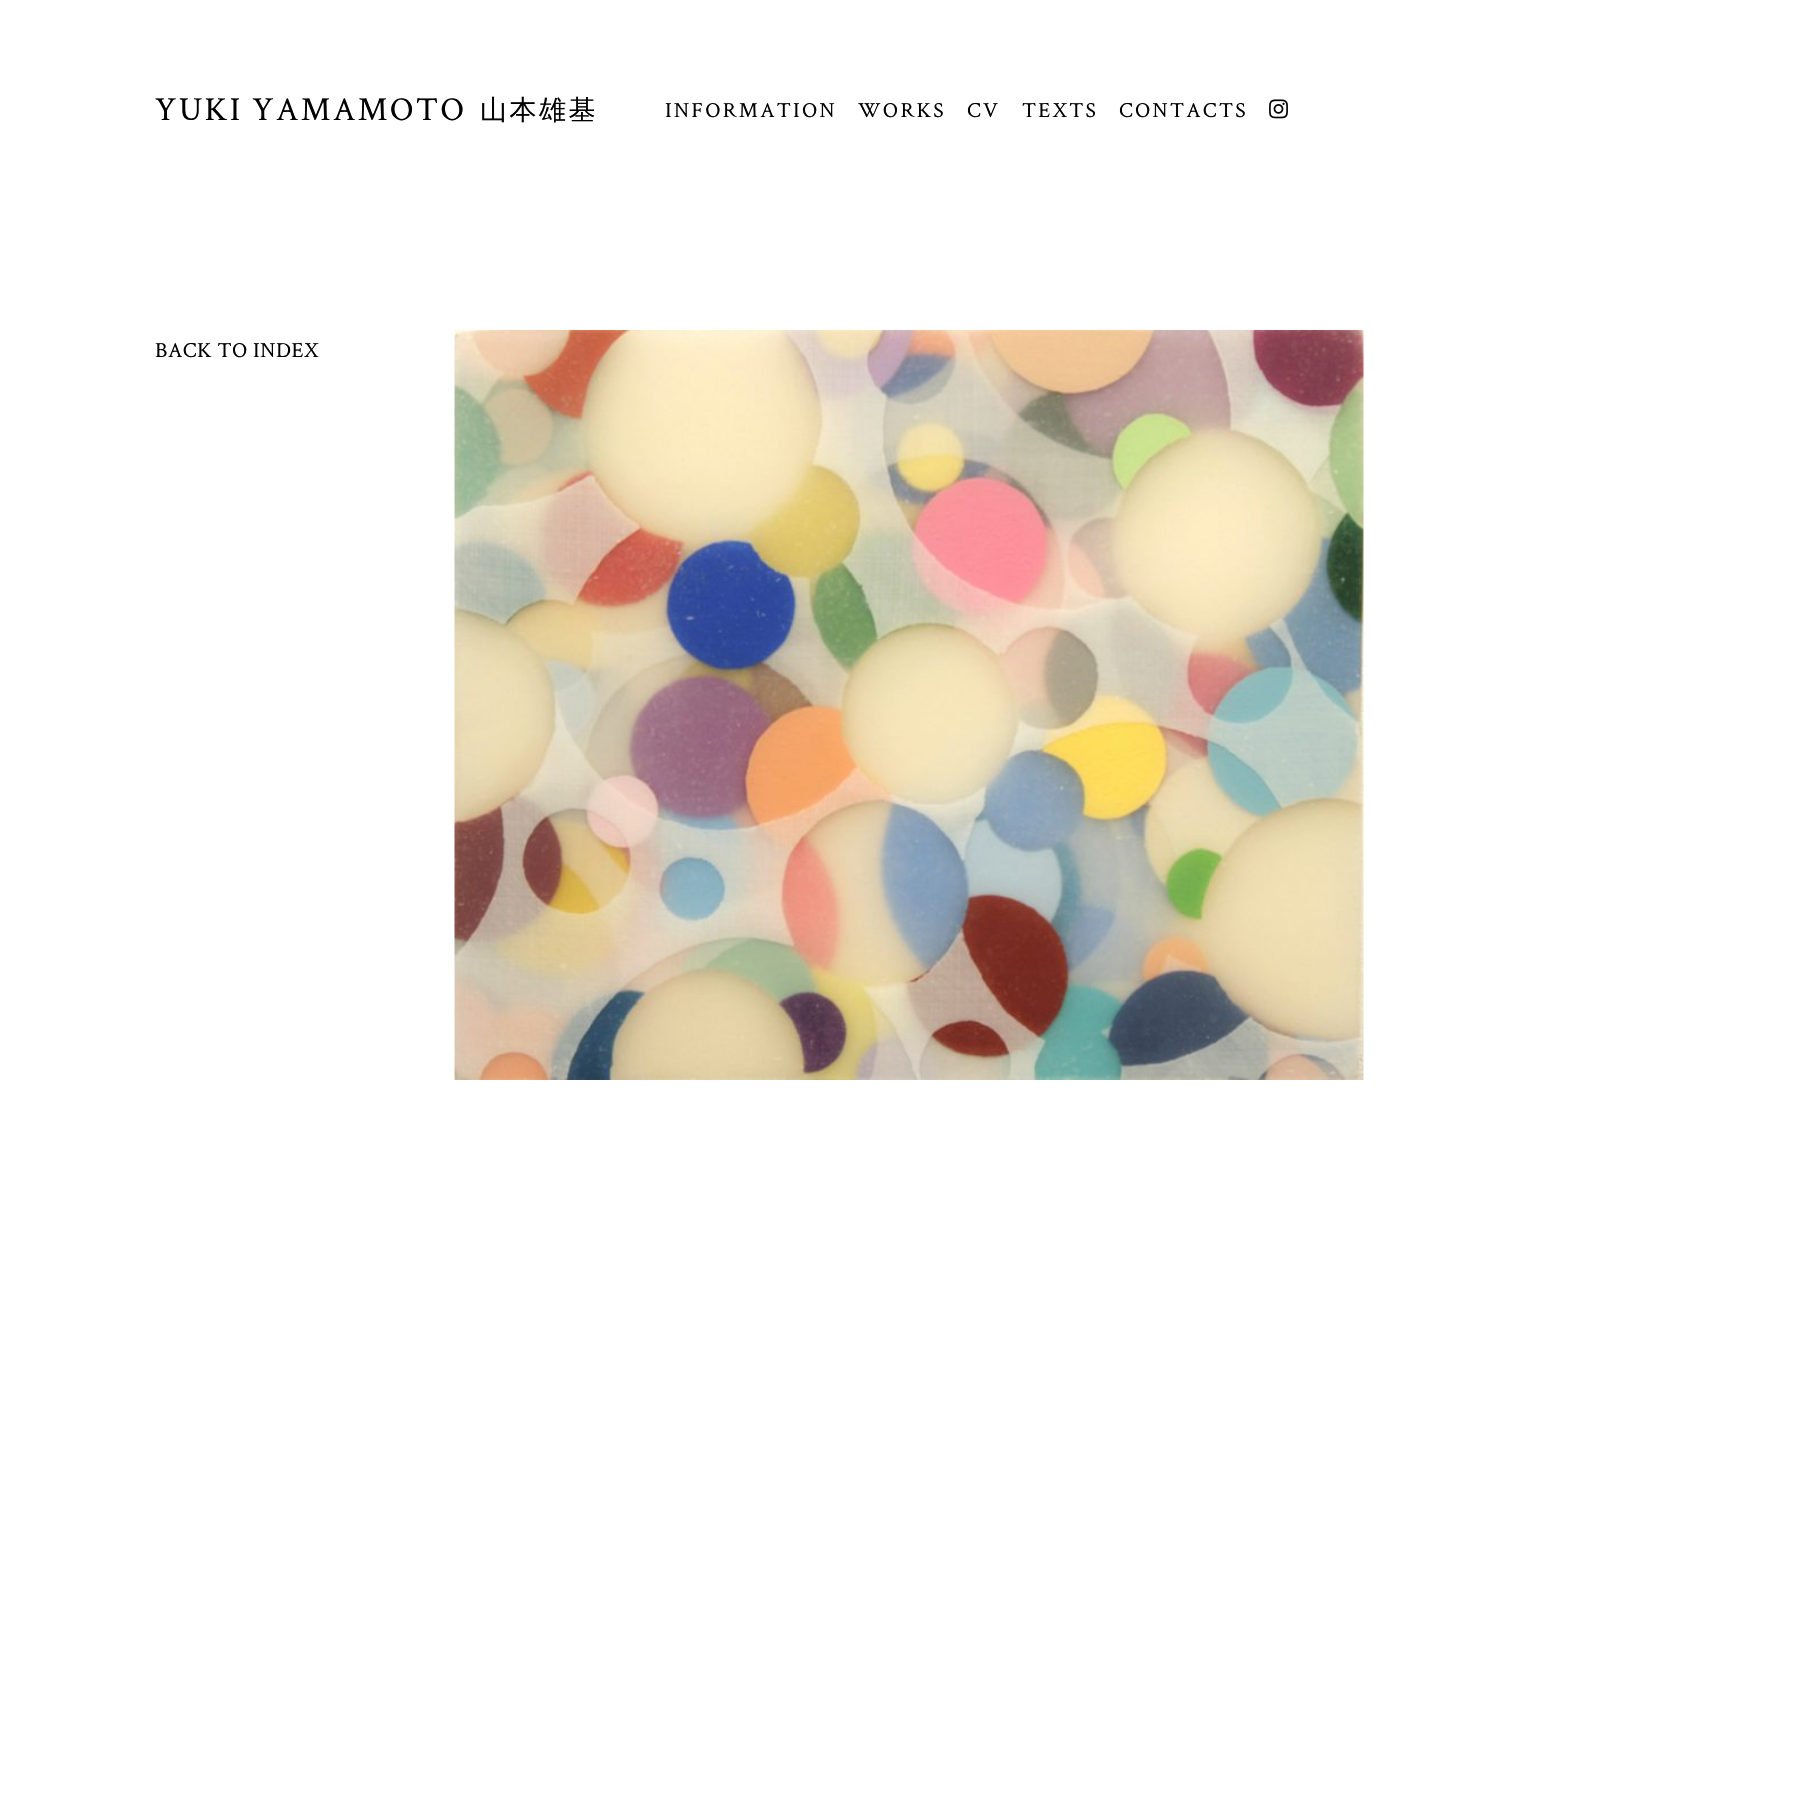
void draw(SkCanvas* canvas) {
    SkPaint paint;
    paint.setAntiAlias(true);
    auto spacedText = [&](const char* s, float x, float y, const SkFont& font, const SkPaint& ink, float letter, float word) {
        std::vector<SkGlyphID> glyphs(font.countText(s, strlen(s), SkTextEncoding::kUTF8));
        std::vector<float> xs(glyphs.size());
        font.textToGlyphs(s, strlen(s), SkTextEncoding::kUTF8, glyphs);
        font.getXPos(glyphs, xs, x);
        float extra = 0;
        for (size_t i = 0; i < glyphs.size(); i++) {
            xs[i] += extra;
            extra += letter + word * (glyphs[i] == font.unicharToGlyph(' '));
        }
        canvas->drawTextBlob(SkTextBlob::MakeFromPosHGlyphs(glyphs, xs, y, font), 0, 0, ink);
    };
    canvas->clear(0xFFFFFFFF);
    SkFont font1(fontMgr->matchFamilyStyle("Crimson Text", SkFontStyle::Normal()), 33.5f);
    font1.setSubpixel(true);
    paint.setColor(0xFF000000);
    spacedText("YUKI YAMAMOTO", 155, 120, font1, paint, 2.4f, 0);
    SkFont font2(fontMgr->matchFamilyStyle("WenQuanYi Zen Hei", SkFontStyle(500, SkFontStyle::kNormal_Width, SkFontStyle::kUpright_Slant)), 27);
    font2.setSubpixel(true);
    spacedText("山本雄基", 480, 119, font2, paint, 2.5f, 0);
    SkFont font3(fontMgr->matchFamilyStyle("Crimson Text", SkFontStyle::Normal()), 21.5f);
    font3.setSubpixel(true);
    spacedText("INFORMATION", 665, 117, font3, paint, 2.25f, 0);
    spacedText("WORKS", 858, 117, font3, paint, 2.25f, 0);
    spacedText("CV", 967, 117, font3, paint, 2.25f, 0);
    spacedText("TEXTS", 1022, 117, font3, paint, 2.25f, 0);
    spacedText("CONTACTS", 1119, 117, font3, paint, 2.25f, 0);
    canvas->drawImageRect(SkImages::DeferredFromEncodedData(SkData::MakeFromFileName("img1.png")), SkRect::MakeXYWH(1269, 99, 19, 20), SkSamplingOptions());
    spacedText("BACK TO INDEX", 155, 357, font3, paint, 0.5f, 0);
    canvas->drawImageRect(SkImages::DeferredFromEncodedData(SkData::MakeFromFileName("img2.png")), SkRect::MakeXYWH(454, 330, 910, 750), SkSamplingOptions());
}
